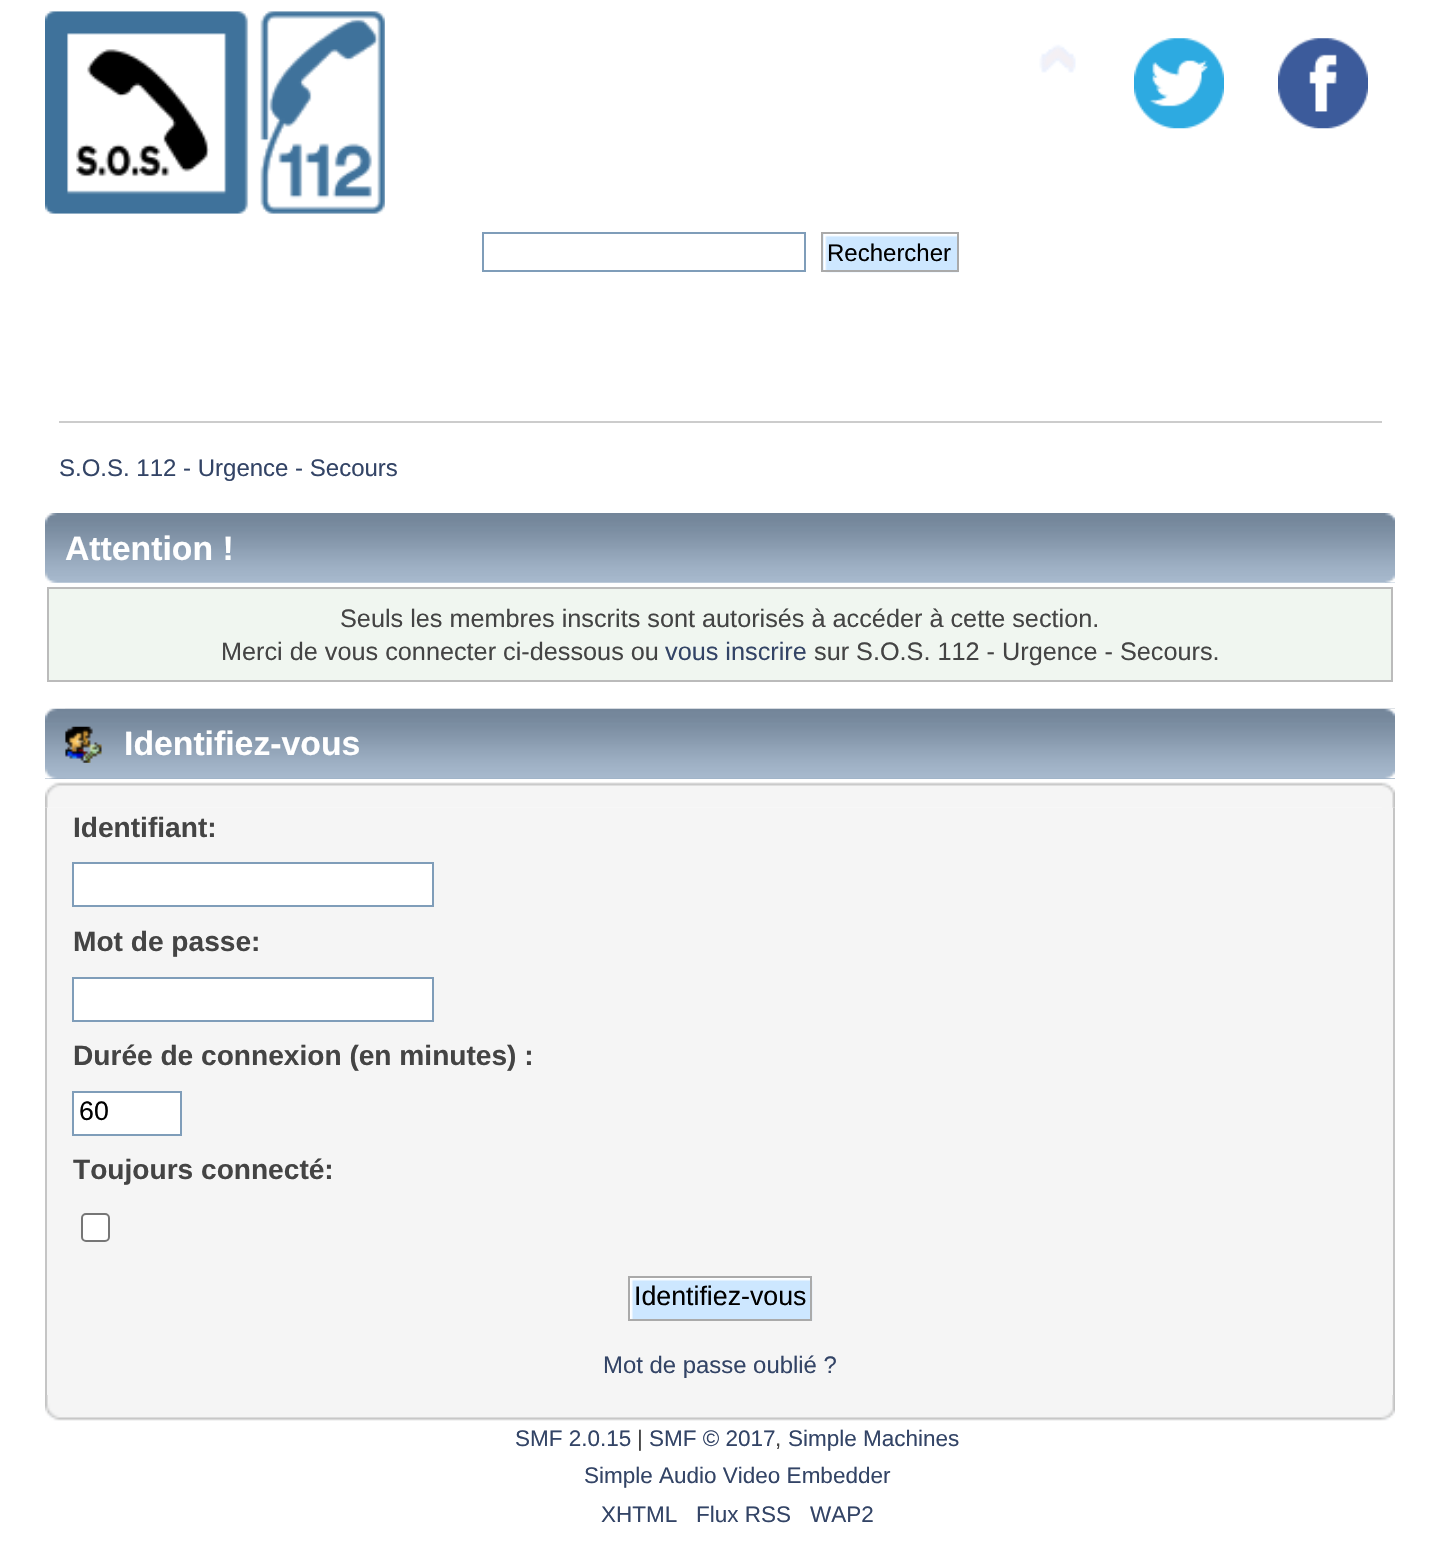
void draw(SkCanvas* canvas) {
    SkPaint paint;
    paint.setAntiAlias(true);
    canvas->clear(0xFFFFFFFF);
    canvas->drawImageRect(SkImages::DeferredFromEncodedData(SkData::MakeFromFileName("img1.png")), SkRect::MakeXYWH(45, 11, 340, 203), SkSamplingOptions());
    canvas->drawImageRect(SkImages::DeferredFromEncodedData(SkData::MakeFromFileName("img2.png")), SkRect::MakeXYWH(1039, 44, 37, 29), SkSamplingOptions());
    canvas->drawImageRect(SkImages::DeferredFromEncodedData(SkData::MakeFromFileName("img3.png")), SkRect::MakeXYWH(1134, 38, 90, 91), SkSamplingOptions());
    canvas->drawImageRect(SkImages::DeferredFromEncodedData(SkData::MakeFromFileName("img4.png")), SkRect::MakeXYWH(1278, 38, 90, 91), SkSamplingOptions());
    paint.setStyle(SkPaint::kStroke_Style);
    paint.setStrokeWidth(2);
    paint.setColor(0xFF7F9DB9);
    canvas->drawRect(SkRect::MakeXYWH(483, 233, 322, 38), paint);
    paint.setStyle(SkPaint::kFill_Style);
    paint.setColor(0xFFCDE7FF);
    canvas->drawRect(SkRect::MakeXYWH(823, 234, 1, 36), paint);
    canvas->drawImageRect(SkImages::DeferredFromEncodedData(SkData::MakeFromFileName("img5.png")), SkRect::MakeXYWH(823, 234, 136, 39), SkSamplingOptions());
    paint.setStyle(SkPaint::kStroke_Style);
    paint.setColor(0xFFAAAAAA);
    canvas->drawRect(SkRect::MakeXYWH(822, 233, 136, 38), paint);
    SkFont font1(fontMgr->matchFamilyStyle("Liberation Sans", SkFontStyle::Normal()), 24);
    font1.setSubpixel(true);
    paint.setStyle(SkPaint::kFill_Style);
    paint.setColor(0xFF000000);
    canvas->drawString("Rechercher", 827, 261, font1, paint);
    paint.setColor(0xFFCCCCCC);
    canvas->drawRect(SkRect::MakeXYWH(59, 421, 1323, 2), paint);
    paint.setColor(0xFF334466);
    canvas->drawString("S.O.S. 112 - Urgence - Secours", 59, 476, font1, paint);
    canvas->drawImageRect(SkImages::DeferredFromEncodedData(SkData::MakeFromFileName("img6.png")), SkRect::MakeXYWH(45, 513, 1350, 70), SkSamplingOptions());
    canvas->drawImageRect(SkImages::DeferredFromEncodedData(SkData::MakeFromFileName("img7.png")), SkRect::MakeXYWH(1385, 513, 10, 70), SkSamplingOptions());
    SkFont font2(fontMgr->matchFamilyStyle("Liberation Sans", SkFontStyle::Bold()), 33.75f);
    font2.setSubpixel(true);
    paint.setColor(0xFFFFFFFF);
    canvas->drawString("Attention !", 65, 560, font2, paint);
    paint.setColor(0xFFF0F6F0);
    canvas->drawRect(SkRect::MakeXYWH(48, 588, 1344, 93), paint);
    paint.setStyle(SkPaint::kStroke_Style);
    paint.setColor(0xFFBBBBBB);
    canvas->drawRect(SkRect::MakeXYWH(48, 588, 1344, 93), paint);
    SkFont font3(fontMgr->matchFamilyStyle("Liberation Sans", SkFontStyle::Normal()), 25.25f);
    font3.setSubpixel(true);
    paint.setStyle(SkPaint::kFill_Style);
    paint.setColor(0xFF444444);
    canvas->drawString("Seuls les membres inscrits sont autorisés à accéder à cette section.", 340, 627, font3, paint);
    canvas->drawString("Merci de vous connecter ci-dessous ou", 221, 660, font3, paint);
    paint.setColor(0xFF334466);
    canvas->drawString("vous inscrire", 665, 660, font3, paint);
    paint.setColor(0xFF444444);
    canvas->drawString("sur S.O.S. 112 - Urgence - Secours.", 814, 660, font3, paint);
    paint.setColor(0xFF99ABBF);
    canvas->drawRect(SkRect::MakeXYWH(45, 778, 1350, 1), paint);
    canvas->drawImageRect(SkImages::DeferredFromEncodedData(SkData::MakeFromFileName("img8.png")), SkRect::MakeXYWH(45, 708, 1350, 71), SkSamplingOptions());
    canvas->drawImageRect(SkImages::DeferredFromEncodedData(SkData::MakeFromFileName("img9.png")), SkRect::MakeXYWH(65, 708, 1330, 71), SkSamplingOptions());
    canvas->drawImageRect(SkImages::DeferredFromEncodedData(SkData::MakeFromFileName("img10.png")), SkRect::MakeXYWH(65, 726, 37, 37), SkSamplingOptions());
    paint.setColor(0xFFFFFFFF);
    canvas->drawString("Identifiez-vous", 124, 755, font2, paint);
    canvas->drawImageRect(SkImages::DeferredFromEncodedData(SkData::MakeFromFileName("img11.png")), SkRect::MakeXYWH(45, 782, 1350, 26), SkSamplingOptions());
    canvas->drawImageRect(SkImages::DeferredFromEncodedData(SkData::MakeFromFileName("img12.png")), SkRect::MakeXYWH(1382, 782, 13, 26), SkSamplingOptions());
    paint.setColor(0xFFF5F5F5);
    canvas->drawRect(SkRect::MakeXYWH(47, 808, 1346, 587), paint);
    paint.setColor(0xFFC5C5C5);
    canvas->drawRect(SkRect::MakeXYWH(1393, 808, 2, 587), paint);
    canvas->drawRect(SkRect::MakeXYWH(45, 808, 2, 587), paint);
    SkFont font4(fontMgr->matchFamilyStyle("Liberation Sans", SkFontStyle::Bold()), 28.1f);
    font4.setSubpixel(true);
    paint.setColor(0xFF444444);
    canvas->drawString("Identifiant:", 73, 837, font4, paint);
    paint.setColor(0xFFFFFFFF);
    canvas->drawRect(SkRect::MakeXYWH(73, 863, 360, 43), paint);
    paint.setStyle(SkPaint::kStroke_Style);
    paint.setColor(0xFF7F9DB9);
    canvas->drawRect(SkRect::MakeXYWH(73, 863, 360, 43), paint);
    paint.setStyle(SkPaint::kFill_Style);
    paint.setColor(0xFF444444);
    canvas->drawString("Mot de passe:", 73, 951, font4, paint);
    paint.setColor(0xFFFFFFFF);
    canvas->drawRect(SkRect::MakeXYWH(73, 978, 360, 43), paint);
    paint.setStyle(SkPaint::kStroke_Style);
    paint.setColor(0xFF7F9DB9);
    canvas->drawRect(SkRect::MakeXYWH(73, 978, 360, 43), paint);
    paint.setStyle(SkPaint::kFill_Style);
    paint.setColor(0xFF444444);
    canvas->drawString("Durée de connexion (en minutes) :", 73, 1065, font4, paint);
    paint.setColor(0xFFFFFFFF);
    canvas->drawRect(SkRect::MakeXYWH(73, 1092, 108, 43), paint);
    paint.setStyle(SkPaint::kStroke_Style);
    paint.setColor(0xFF7F9DB9);
    canvas->drawRect(SkRect::MakeXYWH(73, 1092, 108, 43), paint);
    SkFont font5(fontMgr->matchFamilyStyle("Liberation Sans", SkFontStyle::Normal()), 26.75f);
    font5.setSubpixel(true);
    paint.setStyle(SkPaint::kFill_Style);
    paint.setColor(0xFF000000);
    canvas->drawString("60", 79, 1120, font5, paint);
    paint.setColor(0xFF444444);
    canvas->drawString("Toujours connecté:", 73, 1179, font4, paint);
    paint.setColor(0xFFFFFFFF);
    canvas->drawRoundRect(SkRect::MakeXYWH(82, 1214, 27, 27), 4, 4, paint);
    paint.setStyle(SkPaint::kStroke_Style);
    paint.setColor(0xFF767676);
    canvas->drawRoundRect(SkRect::MakeXYWH(82, 1214, 27, 27), 4, 4, paint);
    canvas->drawImageRect(SkImages::DeferredFromEncodedData(SkData::MakeFromFileName("img13.png")), SkRect::MakeXYWH(630, 1278, 183, 43), SkSamplingOptions());
    paint.setColor(0xFFAAAAAA);
    canvas->drawRect(SkRect::MakeXYWH(629, 1277, 182, 43), paint);
    paint.setStyle(SkPaint::kFill_Style);
    paint.setColor(0xFF000000);
    canvas->drawString("Identifiez-vous", 634, 1305, font5, paint);
    SkFont font6(fontMgr->matchFamilyStyle("Liberation Sans", SkFontStyle::Normal()), 23.9f);
    font6.setSubpixel(true);
    paint.setColor(0xFF334466);
    canvas->drawString("Mot de passe oublié ?", 603, 1373, font6, paint);
    canvas->drawImageRect(SkImages::DeferredFromEncodedData(SkData::MakeFromFileName("img14.png")), SkRect::MakeXYWH(45, 1395, 1336, 26), SkSamplingOptions());
    canvas->drawImageRect(SkImages::DeferredFromEncodedData(SkData::MakeFromFileName("img15.png")), SkRect::MakeXYWH(1381, 1395, 14, 26), SkSamplingOptions());
    SkFont font7(fontMgr->matchFamilyStyle("Liberation Sans", SkFontStyle::Normal()), 22.5f);
    font7.setSubpixel(true);
    canvas->drawString("SMF 2.0.15", 515, 1446, font7, paint);
    paint.setColor(0xFF444444);
    canvas->drawString("|", 637, 1446, font7, paint);
    paint.setColor(0xFF334466);
    canvas->drawString("SMF © 2017", 649, 1446, font7, paint);
    paint.setColor(0xFF444444);
    canvas->drawString(",", 775, 1446, font7, paint);
    paint.setColor(0xFF334466);
    canvas->drawString("Simple Machines", 788, 1446, font7, paint);
    canvas->drawString("Simple Audio Video Embedder", 584, 1483, font7, paint);
    canvas->drawString("XHTML", 601, 1522, font7, paint);
    canvas->drawString("Flux RSS", 696, 1522, font7, paint);
    canvas->drawString("WAP2", 810, 1522, font7, paint);
}
